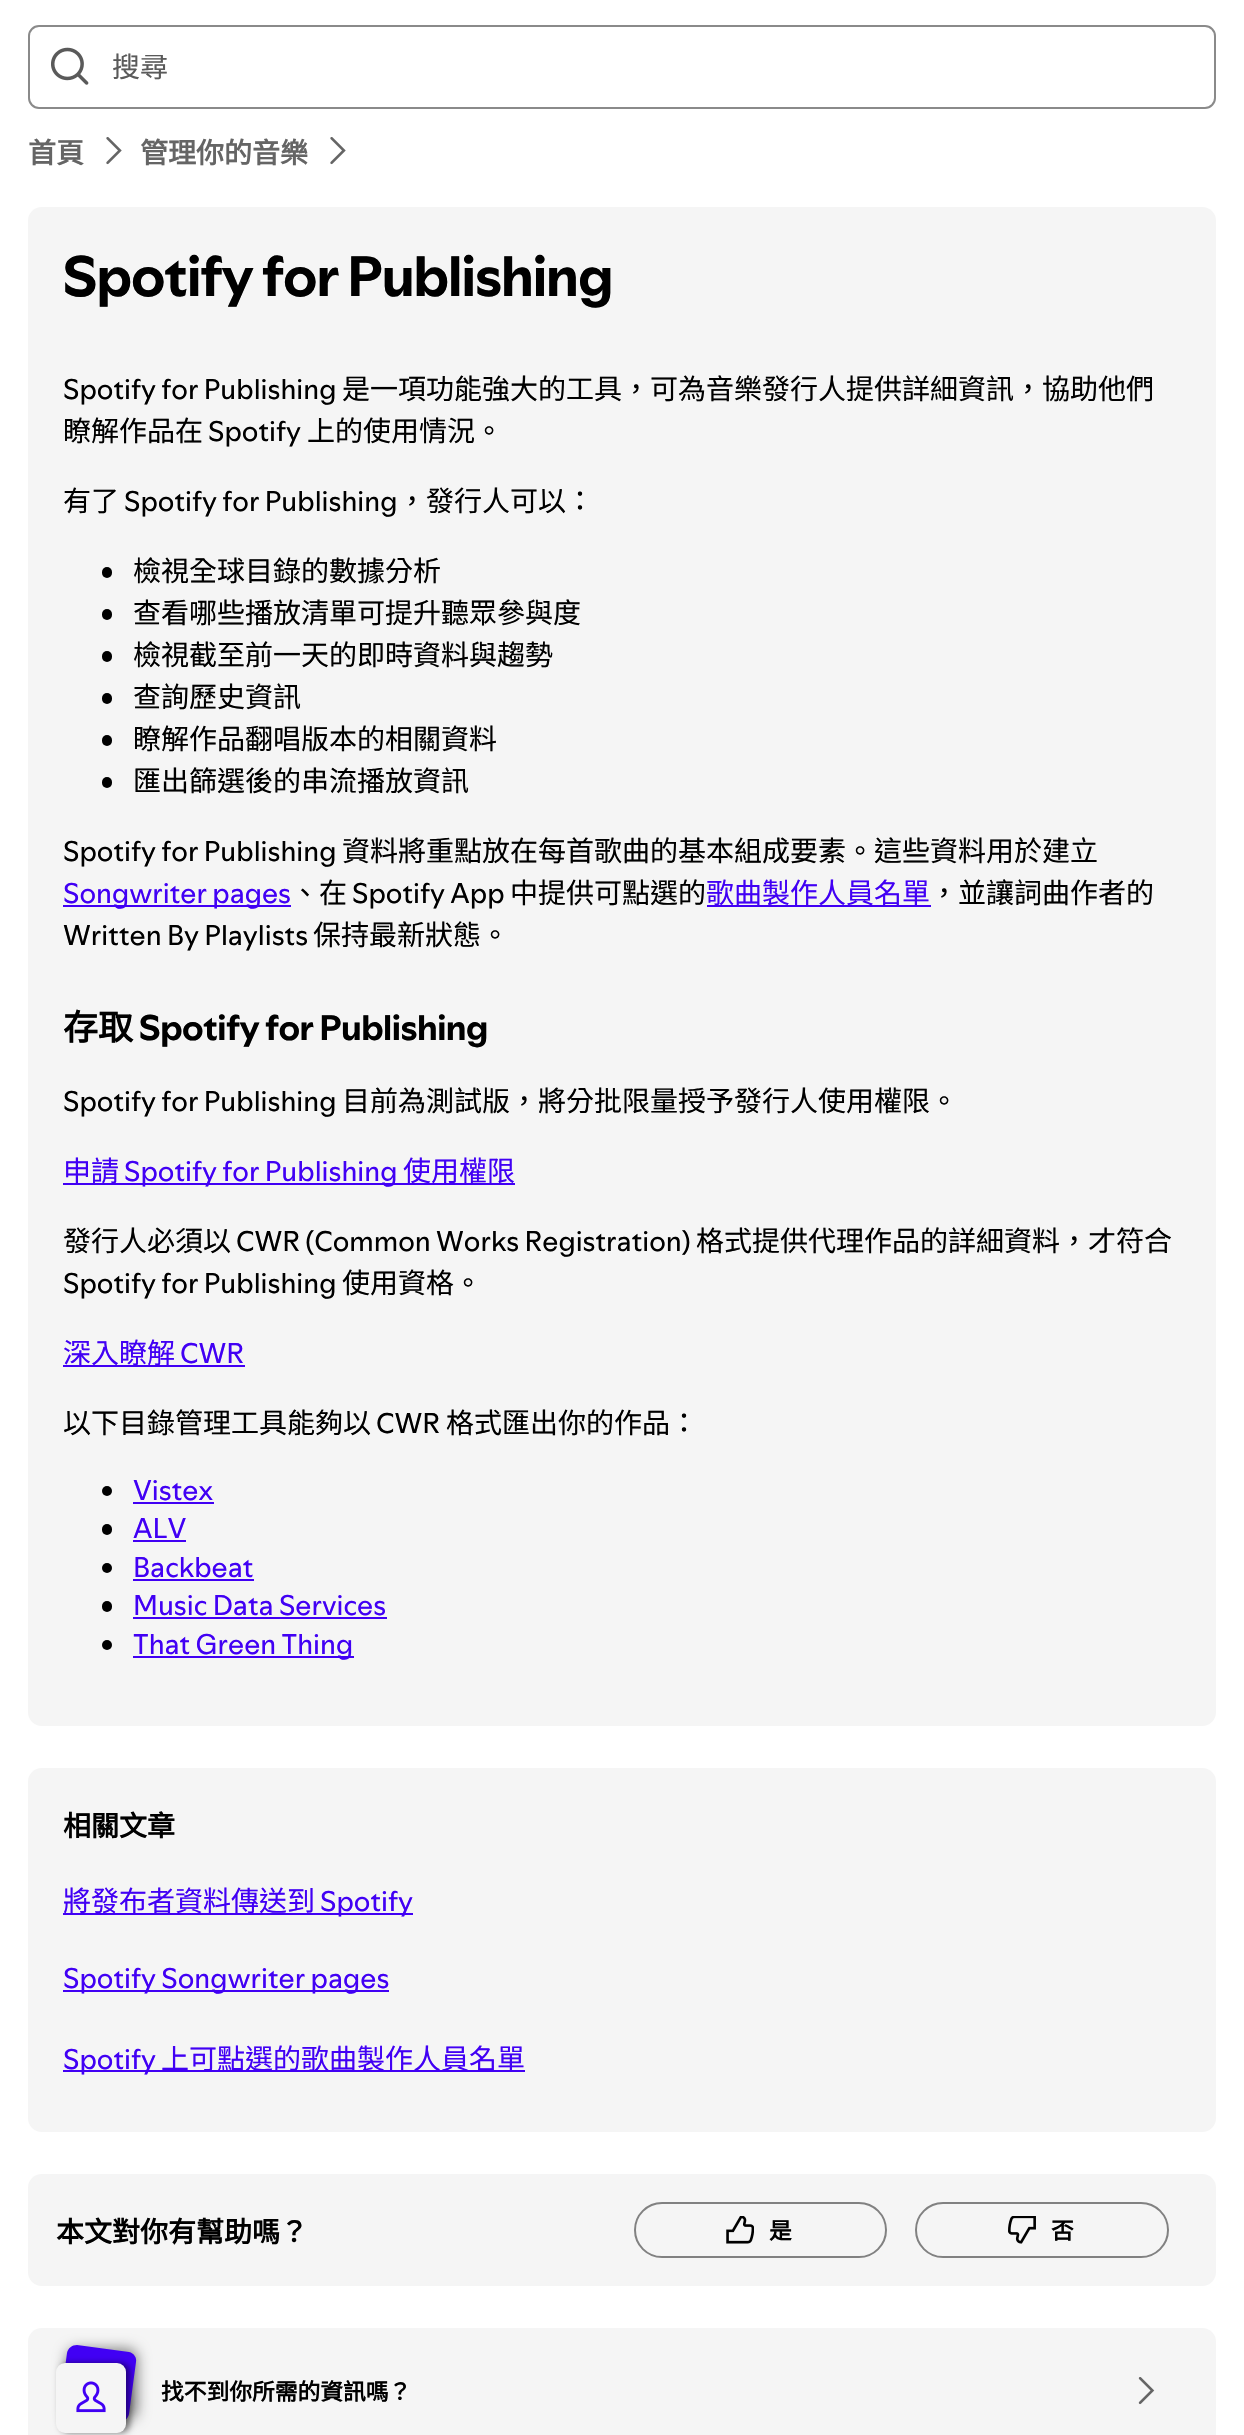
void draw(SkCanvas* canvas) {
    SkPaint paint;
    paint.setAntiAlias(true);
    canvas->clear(0xFFFFFFFF);
    paint.setStyle(SkPaint::kStroke_Style);
    paint.setStrokeWidth(2);
    paint.setColor(0xFF8A8A8A);
    canvas->drawRoundRect(SkRect::MakeXYWH(29, 26, 1186, 82), 10, 10, paint);
    canvas->drawImageRect(SkImages::DeferredFromEncodedData(SkData::MakeFromFileName("img1.png")), SkRect::MakeXYWH(51, 47, 38, 38), SkSamplingOptions());
    SkFont font1(fontMgr->matchFamilyStyle("Noto Sans CJK TC", SkFontStyle::Normal()), 28);
    font1.setSubpixel(true);
    paint.setStyle(SkPaint::kFill_Style);
    paint.setColor(0xFF5A5A5A);
    canvas->drawString("搜尋", 112, 77, font1, paint);
    SkFont font2(fontMgr->matchFamilyStyle("Noto Sans CJK TC", SkFontStyle::Bold()), 28);
    font2.setSubpixel(true);
    paint.setColor(0xFF656565);
    canvas->drawString("首頁", 28, 163, font2, paint);
    canvas->drawImageRect(SkImages::DeferredFromEncodedData(SkData::MakeFromFileName("img2.png")), SkRect::MakeXYWH(106, 137, 16, 28), SkSamplingOptions());
    canvas->drawString("管理你的音樂", 140, 163, font2, paint);
    canvas->drawImageRect(SkImages::DeferredFromEncodedData(SkData::MakeFromFileName("img2.png")), SkRect::MakeXYWH(330, 137, 16, 28), SkSamplingOptions());
    paint.setColor(0xFFF5F5F5);
    canvas->drawRoundRect(SkRect::MakeXYWH(28, 207, 1188, 1519), 14, 14, paint);
    SkFont font3(fontMgr->matchFamilyStyle("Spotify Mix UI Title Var", SkFontStyle::Bold()), 56);
    font3.setSubpixel(true);
    paint.setColor(0xFF000000);
    canvas->drawString("Spotify for Publishing", 63, 296, font3, paint);
    SkFont font4(fontMgr->matchFamilyStyle("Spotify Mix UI", SkFontStyle::Normal()), 28);
    font4.setSubpixel(true);
    canvas->drawString("Spotify for Publishing", 63, 399, font4, paint);
    canvas->drawString("是一項功能強大的工具，可為音樂發行人提供詳細資訊，協助他們", 342, 399, font1, paint);
    canvas->drawString("瞭解作品在", 63, 441, font1, paint);
    canvas->drawString("Spotify", 208, 441, font4, paint);
    canvas->drawString("上的使用情況。", 307, 441, font1, paint);
    canvas->drawString("有了", 63, 511, font1, paint);
    canvas->drawString("Spotify for Publishing", 124, 511, font4, paint);
    canvas->drawString("，發行人可以：", 398, 511, font1, paint);
    canvas->drawRoundRect(SkRect::MakeXYWH(102, 567, 10, 11), 5, 5, paint);
    canvas->drawString("檢視全球目錄的數據分析", 133, 581, font1, paint);
    canvas->drawRoundRect(SkRect::MakeXYWH(102, 609, 10, 11), 5, 5, paint);
    canvas->drawString("查看哪些播放清單可提升聽眾參與度", 133, 623, font1, paint);
    canvas->drawRoundRect(SkRect::MakeXYWH(102, 651, 10, 11), 5, 5, paint);
    canvas->drawString("檢視截至前一天的即時資料與趨勢", 133, 665, font1, paint);
    canvas->drawRoundRect(SkRect::MakeXYWH(102, 693, 10, 11), 5, 5, paint);
    canvas->drawString("查詢歷史資訊", 133, 707, font1, paint);
    canvas->drawRoundRect(SkRect::MakeXYWH(102, 735, 10, 11), 5, 5, paint);
    canvas->drawString("瞭解作品翻唱版本的相關資料", 133, 749, font1, paint);
    canvas->drawRoundRect(SkRect::MakeXYWH(102, 777, 10, 11), 5, 5, paint);
    canvas->drawString("匯出篩選後的串流播放資訊", 133, 791, font1, paint);
    canvas->drawString("Spotify for Publishing", 63, 861, font4, paint);
    canvas->drawString("資料將重點放在每首歌曲的基本組成要素。這些資料用於建立", 342, 861, font1, paint);
    paint.setColor(0xFF4100F4);
    canvas->drawRect(SkRect::MakeXYWH(63, 905, 228, 2), paint);
    canvas->drawString("Songwriter pages", 63, 903, font4, paint);
    paint.setColor(0xFF000000);
    canvas->drawString("、在", 291, 903, font1, paint);
    canvas->drawString("Spotify App", 352, 903, font4, paint);
    canvas->drawString("中提供可點選的", 510, 903, font1, paint);
    paint.setColor(0xFF4100F4);
    canvas->drawRect(SkRect::MakeXYWH(707, 905, 224, 2), paint);
    canvas->drawString("歌曲製作人員名單", 706, 903, font1, paint);
    paint.setColor(0xFF000000);
    canvas->drawString("，並讓詞曲作者的", 930, 903, font1, paint);
    canvas->drawString("Written By Playlists", 63, 945, font4, paint);
    canvas->drawString("保持最新狀態。", 313, 945, font1, paint);
    SkFont font5(fontMgr->matchFamilyStyle("Noto Sans CJK TC", SkFontStyle::Bold()), 35);
    font5.setSubpixel(true);
    canvas->drawString("存取", 63, 1040, font5, paint);
    SkFont font6(fontMgr->matchFamilyStyle("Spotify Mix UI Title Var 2", SkFontStyle::Bold()), 35);
    font6.setSubpixel(true);
    canvas->drawString("Spotify for Publishing", 139, 1040, font6, paint);
    canvas->drawString("Spotify for Publishing", 63, 1111, font4, paint);
    canvas->drawString("目前為測試版，將分批限量授予發行人使用權限。", 342, 1111, font1, paint);
    paint.setColor(0xFF4100F4);
    canvas->drawRect(SkRect::MakeXYWH(63, 1183, 452, 2), paint);
    canvas->drawString("申請", 63, 1181, font1, paint);
    canvas->drawString("Spotify for Publishing", 124, 1181, font4, paint);
    canvas->drawString("使用權限", 403, 1181, font1, paint);
    paint.setColor(0xFF000000);
    canvas->drawString("發行人必須以", 63, 1251, font1, paint);
    canvas->drawString("CWR (Common Works Registration)", 236, 1251, font4, paint);
    canvas->drawString("格式提供代理作品的詳細資料，才符合", 696, 1251, font1, paint);
    canvas->drawString("Spotify for Publishing", 63, 1293, font4, paint);
    canvas->drawString("使用資格。", 342, 1293, font1, paint);
    paint.setColor(0xFF4100F4);
    canvas->drawRect(SkRect::MakeXYWH(63, 1365, 182, 2), paint);
    canvas->drawString("深入瞭解", 63, 1363, font1, paint);
    canvas->drawString("CWR", 180, 1363, font4, paint);
    paint.setColor(0xFF000000);
    canvas->drawString("以下目錄管理工具能夠以", 63, 1433, font1, paint);
    canvas->drawString("CWR", 376, 1433, font4, paint);
    canvas->drawString("格式匯出你的作品：", 446, 1433, font1, paint);
    canvas->drawCircle(107, 1491, 5, paint);
    paint.setColor(0xFF4100F4);
    canvas->drawString("Vistex", 133, 1500, font4, paint);
    canvas->drawRect(SkRect::MakeXYWH(133, 1502, 81, 2), paint);
    paint.setColor(0xFF000000);
    canvas->drawRoundRect(SkRect::MakeXYWH(102, 1524, 10, 11), 5, 5, paint);
    paint.setColor(0xFF4100F4);
    canvas->drawString("ALV", 133, 1538, font4, paint);
    canvas->drawRect(SkRect::MakeXYWH(133, 1540, 53, 2), paint);
    paint.setColor(0xFF000000);
    canvas->drawCircle(107, 1568, 5, paint);
    paint.setColor(0xFF4100F4);
    canvas->drawString("Backbeat", 133, 1577, font4, paint);
    canvas->drawRect(SkRect::MakeXYWH(133, 1579, 121, 2), paint);
    paint.setColor(0xFF000000);
    canvas->drawRoundRect(SkRect::MakeXYWH(102, 1601, 10, 11), 5, 5, paint);
    paint.setColor(0xFF4100F4);
    canvas->drawString("Music Data Services", 133, 1615, font4, paint);
    canvas->drawRect(SkRect::MakeXYWH(133, 1617, 254, 2), paint);
    paint.setColor(0xFF000000);
    canvas->drawCircle(107, 1645, 5, paint);
    paint.setColor(0xFF4100F4);
    canvas->drawRect(SkRect::MakeXYWH(133, 1656, 221, 2), paint);
    canvas->drawString("That Green Thing", 133, 1654, font4, paint);
    paint.setColor(0xFFF5F5F5);
    canvas->drawRoundRect(SkRect::MakeXYWH(28, 1768, 1188, 364), 14, 14, paint);
    paint.setColor(0xFF000000);
    canvas->drawString("相關文章", 63, 1836, font2, paint);
    paint.setColor(0xFF4100F4);
    canvas->drawRect(SkRect::MakeXYWH(63, 1913, 350, 2), paint);
    canvas->drawString("將發布者資料傳送到", 63, 1911, font1, paint);
    canvas->drawString("Spotify", 320, 1911, font4, paint);
    canvas->drawRect(SkRect::MakeXYWH(63, 1990, 326, 2), paint);
    canvas->drawString("Spotify Songwriter pages", 63, 1988, font4, paint);
    canvas->drawRect(SkRect::MakeXYWH(63, 2070, 462, 2), paint);
    canvas->drawString("Spotify", 63, 2069, font4, paint);
    canvas->drawString("上可點選的歌曲製作人員名單", 161, 2069, font1, paint);
    paint.setColor(0xFFF5F5F5);
    canvas->drawRoundRect(SkRect::MakeXYWH(28, 2174, 1188, 112), 14, 14, paint);
    paint.setColor(0xFF000000);
    canvas->drawString("本文對你有幫助嗎？", 56, 2242, font2, paint);
    paint.setStyle(SkPaint::kStroke_Style);
    paint.setColor(0xFF818181);
    canvas->drawRoundRect(SkRect::MakeXYWH(635, 2203, 251, 54), 27, 27, paint);
    canvas->drawImageRect(SkImages::DeferredFromEncodedData(SkData::MakeFromFileName("img3.png")), SkRect::MakeXYWH(726, 2216, 28, 28), SkSamplingOptions());
    SkFont font7(fontMgr->matchFamilyStyle("Noto Sans CJK TC", SkFontStyle::Bold()), 22.75f);
    font7.setSubpixel(true);
    paint.setStyle(SkPaint::kFill_Style);
    paint.setColor(0xFF000000);
    canvas->drawString("是", 769, 2239, font7, paint);
    paint.setStyle(SkPaint::kStroke_Style);
    paint.setColor(0xFF818181);
    canvas->drawRoundRect(SkRect::MakeXYWH(916, 2203, 252, 54), 27, 27, paint);
    canvas->drawImageRect(SkImages::DeferredFromEncodedData(SkData::MakeFromFileName("img4.png")), SkRect::MakeXYWH(1008, 2216, 28, 28), SkSamplingOptions());
    paint.setStyle(SkPaint::kFill_Style);
    paint.setColor(0xFF000000);
    canvas->drawString("否", 1051, 2239, font7, paint);
    paint.setColor(0xFFF5F5F5);
    canvas->drawRoundRect(SkRect::MakeXYWH(28, 2328, 1188, 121), 14, 14, paint);
    paint.setColor(0x80000000);
    paint.setMaskFilter(SkMaskFilter::MakeBlur(kNormal_SkBlurStyle, 7));
    canvas->drawRoundRect(SkRect::MakeXYWH(67, 2349, 70, 70), 9, 9, paint);
    paint.setMaskFilter(nullptr);
    paint.setColor(0xFF4100F4);
    canvas->drawPath(SkPathBuilder().moveTo(77, 2345).lineTo(129, 2352).cubicTo(134, 2353, 137, 2358, 136, 2362).lineTo(129, 2414).cubicTo(128, 2419, 124, 2422, 119, 2422).lineTo(67, 2415).cubicTo(62, 2414, 59, 2409, 60, 2405).lineTo(67, 2353).cubicTo(68, 2348, 72, 2345, 77, 2345).close().detach(), paint);
    paint.setColor(0x80000000);
    paint.setMaskFilter(SkMaskFilter::MakeBlur(kNormal_SkBlurStyle, 3));
    canvas->drawRoundRect(SkRect::MakeXYWH(60, 2363, 70, 70), 9, 9, paint);
    paint.setMaskFilter(nullptr);
    paint.setColor(0xFFF5F5F5);
    canvas->drawRoundRect(SkRect::MakeXYWH(56, 2363, 70, 70), 9, 9, paint);
    canvas->drawImageRect(SkImages::DeferredFromEncodedData(SkData::MakeFromFileName("img5.png")), SkRect::MakeXYWH(76, 2381, 30, 32), SkSamplingOptions());
    paint.setColor(0xFF000000);
    canvas->drawString("找不到你所需的資訊嗎？", 161, 2400, font7, paint);
    canvas->drawImageRect(SkImages::DeferredFromEncodedData(SkData::MakeFromFileName("img6.png")), SkRect::MakeXYWH(1138, 2377, 17, 28), SkSamplingOptions());
}
